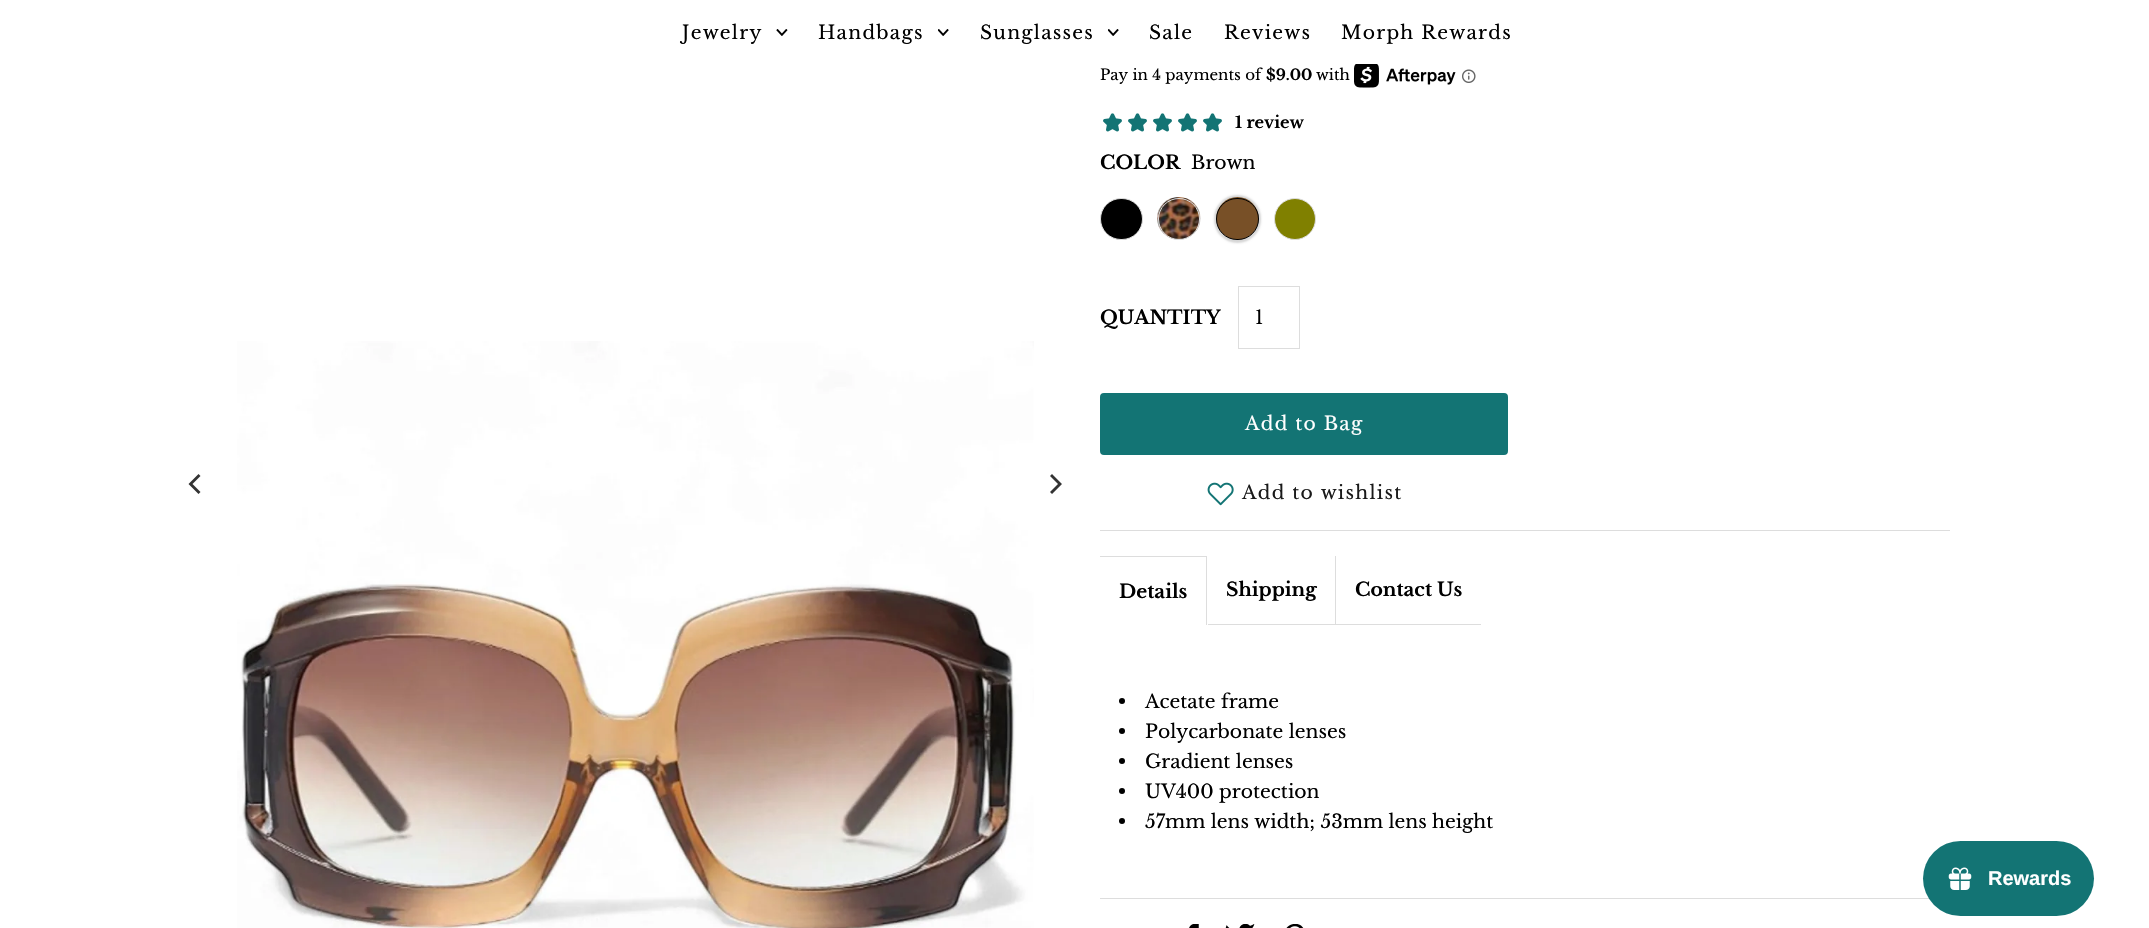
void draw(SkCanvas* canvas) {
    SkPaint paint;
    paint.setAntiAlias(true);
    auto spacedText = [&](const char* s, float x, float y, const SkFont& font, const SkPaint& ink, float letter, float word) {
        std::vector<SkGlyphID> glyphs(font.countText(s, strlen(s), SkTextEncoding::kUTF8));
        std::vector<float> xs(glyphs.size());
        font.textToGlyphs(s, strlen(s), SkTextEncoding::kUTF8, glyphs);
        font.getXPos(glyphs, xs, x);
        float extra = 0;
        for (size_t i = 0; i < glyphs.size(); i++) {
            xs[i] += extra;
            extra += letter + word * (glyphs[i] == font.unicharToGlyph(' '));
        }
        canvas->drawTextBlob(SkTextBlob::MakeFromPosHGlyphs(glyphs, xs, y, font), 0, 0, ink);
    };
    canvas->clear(0xFFFFFFFF);
    SkFont font1(fontMgr->matchFamilyStyle("Libre Baskerville", SkFontStyle::Normal()), 18.75f);
    font1.setSubpixel(true);
    paint.setColor(0xFF000000);
    spacedText("Jewelry", 682, 39, font1, paint, 1.25f, 0);
    canvas->drawImageRect(SkImages::DeferredFromEncodedData(SkData::MakeFromFileName("img1.png")), SkRect::MakeXYWH(776, 29, 12, 7), SkSamplingOptions());
    spacedText("Handbags", 818, 39, font1, paint, 1.25f, 0);
    canvas->drawImageRect(SkImages::DeferredFromEncodedData(SkData::MakeFromFileName("img2.png")), SkRect::MakeXYWH(938, 29, 11, 7), SkSamplingOptions());
    spacedText("Sunglasses", 980, 39, font1, paint, 1.25f, 0);
    canvas->drawImageRect(SkImages::DeferredFromEncodedData(SkData::MakeFromFileName("img2.png")), SkRect::MakeXYWH(1108, 29, 11, 7), SkSamplingOptions());
    spacedText("Sale", 1149, 39, font1, paint, 1.25f, 0);
    spacedText("Reviews", 1224, 39, font1, paint, 1.25f, 0);
    spacedText("Morph Rewards", 1341, 39, font1, paint, 1.25f, 0);
    paint.setColor(0xFF333333);
    canvas->drawPath(SkPathBuilder().moveTo(188.5f, 484).lineTo(198.5f, 494).lineTo(200.5f, 492).lineTo(192.5f, 484).lineTo(200.5f, 476).lineTo(198.5f, 474).close().detach(), paint);
    canvas->drawImageRect(SkImages::DeferredFromEncodedData(SkData::MakeFromFileName("img3.png")), SkRect::MakeXYWH(237, 341, 797, 587), SkSamplingOptions());
    canvas->drawPath(SkPathBuilder().moveTo(1062, 484).lineTo(1052, 474).lineTo(1050, 476).lineTo(1058, 484).lineTo(1050, 492).lineTo(1052, 494).close().detach(), paint);
    SkFont font2(fontMgr->matchFamilyStyle("Libre Baskerville", SkFontStyle::Normal()), 15);
    font2.setSubpixel(true);
    paint.setColor(0xFF000000);
    canvas->drawString("Pay in 4 payments of", 1100, 80, font2, paint);
    SkFont font3(fontMgr->matchFamilyStyle("Libre Baskerville", SkFontStyle::Bold()), 15);
    font3.setSubpixel(true);
    canvas->drawString("$9.00", 1266, 80, font3, paint);
    canvas->drawString("with", 1316, 80, font2, paint);
    canvas->drawImageRect(SkImages::DeferredFromEncodedData(SkData::MakeFromFileName("img4.png")), SkRect::MakeXYWH(1354, 64, 102, 24), SkSamplingOptions());
    canvas->drawImageRect(SkImages::DeferredFromEncodedData(SkData::MakeFromFileName("img5.png")), SkRect::MakeXYWH(1462, 69, 14, 14), SkSamplingOptions());
    canvas->drawImageRect(SkImages::DeferredFromEncodedData(SkData::MakeFromFileName("img6.png")), SkRect::MakeXYWH(1103, 113, 19, 19), SkSamplingOptions());
    canvas->drawImageRect(SkImages::DeferredFromEncodedData(SkData::MakeFromFileName("img6.png")), SkRect::MakeXYWH(1128, 113, 19, 19), SkSamplingOptions());
    canvas->drawImageRect(SkImages::DeferredFromEncodedData(SkData::MakeFromFileName("img6.png")), SkRect::MakeXYWH(1153, 113, 19, 19), SkSamplingOptions());
    canvas->drawImageRect(SkImages::DeferredFromEncodedData(SkData::MakeFromFileName("img6.png")), SkRect::MakeXYWH(1178, 113, 19, 19), SkSamplingOptions());
    canvas->drawImageRect(SkImages::DeferredFromEncodedData(SkData::MakeFromFileName("img6.png")), SkRect::MakeXYWH(1203, 113, 19, 19), SkSamplingOptions());
    SkFont font4(fontMgr->matchFamilyStyle("Libre Baskerville", SkFontStyle::Bold()), 16.25f);
    font4.setSubpixel(true);
    canvas->drawString("1 review", 1235, 128, font4, paint);
    paint.setColor(0xFFDDDDDD);
    canvas->drawRect(SkRect::MakeXYWH(1100, 530, 850, 1), paint);
    SkFont font5(fontMgr->matchFamilyStyle("Libre Baskerville", SkFontStyle::Bold()), 18.75f);
    font5.setSubpixel(true);
    paint.setColor(0xFF000000);
    canvas->drawString("COLOR", 1100, 169, font5, paint);
    canvas->drawString("Brown", 1191, 169, font1, paint);
    canvas->drawRoundRect(SkRect::MakeXYWH(1100.5f, 198.5f, 42, 41), 20.5f, 20.5f, paint);
    paint.setStyle(SkPaint::kStroke_Style);
    paint.setStrokeWidth(1);
    paint.setColor(0xFFDDDDDD);
    canvas->drawRoundRect(SkRect::MakeXYWH(1100.5f, 198.5f, 42, 41), 20.5f, 20.5f, paint);
    canvas->drawImageRect(SkImages::DeferredFromEncodedData(SkData::MakeFromFileName("img7.png")), SkRect::MakeXYWH(1157, 197, 44, 43), SkSamplingOptions());
    canvas->drawCircle(1179, 219, 20.5f, paint);
    paint.setStyle(SkPaint::kFill_Style);
    paint.setColor(0xFFD6D6D6);
    paint.setMaskFilter(SkMaskFilter::MakeBlur(kNormal_SkBlurStyle, 1));
    canvas->drawRoundRect(SkRect::MakeXYWH(1214, 195, 47, 48), 23.5f, 23.5f, paint);
    paint.setMaskFilter(nullptr);
    canvas->drawImageRect(SkImages::DeferredFromEncodedData(SkData::MakeFromFileName("img8.png")), SkRect::MakeXYWH(1216, 197, 43, 43), SkSamplingOptions());
    paint.setStyle(SkPaint::kStroke_Style);
    paint.setColor(0xFF000000);
    canvas->drawRoundRect(SkRect::MakeXYWH(1216.5f, 198.5f, 42, 41), 20.5f, 20.5f, paint);
    paint.setStyle(SkPaint::kFill_Style);
    paint.setColor(0xFF808000);
    canvas->drawCircle(1295, 219, 20.5f, paint);
    paint.setStyle(SkPaint::kStroke_Style);
    paint.setColor(0xFFDDDDDD);
    canvas->drawCircle(1295, 219, 20.5f, paint);
    paint.setStyle(SkPaint::kFill_Style);
    paint.setColor(0xFF000000);
    canvas->drawString("QUANTITY", 1100, 324, font5, paint);
    paint.setStyle(SkPaint::kStroke_Style);
    paint.setColor(0xFFDDDDDD);
    canvas->drawRect(SkRect::MakeXYWH(1238.5f, 286.5f, 61, 62), paint);
    paint.setStyle(SkPaint::kFill_Style);
    paint.setColor(0xFF000000);
    canvas->drawString("1", 1255, 324, font1, paint);
    paint.setColor(0xFF137474);
    canvas->drawRoundRect(SkRect::MakeXYWH(1101.5f, 394.5f, 405, 59), 2.5f, 2.5f, paint);
    paint.setStyle(SkPaint::kStroke_Style);
    paint.setStrokeWidth(3);
    canvas->drawRoundRect(SkRect::MakeXYWH(1101.5f, 394.5f, 405, 59), 2.5f, 2.5f, paint);
    paint.setStyle(SkPaint::kFill_Style);
    paint.setColor(0xFFFFFFFF);
    spacedText("Add to Bag", 1245, 430, font1, paint, 1.25f, 0);
    canvas->drawImageRect(SkImages::DeferredFromEncodedData(SkData::MakeFromFileName("img9.png")), SkRect::MakeXYWH(1207, 482, 27, 24), SkSamplingOptions());
    paint.setColor(0xFF1A1A1A);
    spacedText("Add to wishlist", 1242, 499, font1, paint, 1.25f, 0);
    paint.setColor(0xFFDDDDDD);
    canvas->drawRect(SkRect::MakeXYWH(1206, 556, 1, 69), paint);
    canvas->drawRect(SkRect::MakeXYWH(1100, 556, 106, 1), paint);
    paint.setColor(0xFF000000);
    canvas->drawString("Details", 1119, 598, font5, paint);
    paint.setColor(0xFFDDDDDD);
    canvas->drawRect(SkRect::MakeXYWH(1335, 556, 1, 69), paint);
    canvas->drawRect(SkRect::MakeXYWH(1208, 624, 127, 1), paint);
    paint.setColor(0xFF000000);
    canvas->drawString("Shipping", 1226, 596, font5, paint);
    paint.setColor(0xFFDDDDDD);
    canvas->drawRect(SkRect::MakeXYWH(1336, 624, 145, 1), paint);
    paint.setColor(0xFF000000);
    canvas->drawString("Contact Us", 1355, 596, font5, paint);
    canvas->drawCircle(1122, 701, 3, paint);
    canvas->drawString("Acetate frame", 1145, 708, font1, paint);
    canvas->drawCircle(1122, 731, 3, paint);
    canvas->drawString("Polycarbonate lenses", 1145, 738, font1, paint);
    canvas->drawCircle(1122, 761, 3, paint);
    canvas->drawString("Gradient lenses", 1145, 768, font1, paint);
    canvas->drawCircle(1122, 791, 3, paint);
    canvas->drawString("UV400 protection", 1145, 798, font1, paint);
    canvas->drawCircle(1122, 821, 3, paint);
    canvas->drawString("57mm lens width; 53mm lens height", 1145, 828, font1, paint);
    paint.setColor(0xFFDDDDDD);
    canvas->drawRect(SkRect::MakeXYWH(1100, 898, 830, 1), paint);
    canvas->drawImageRect(SkImages::DeferredFromEncodedData(SkData::MakeFromFileName("img10.png")), SkRect::MakeXYWH(1189, 924, 10, 4), SkSamplingOptions());
    canvas->drawImageRect(SkImages::DeferredFromEncodedData(SkData::MakeFromFileName("img11.png")), SkRect::MakeXYWH(1225, 924, 30, 4), SkSamplingOptions());
    canvas->drawImageRect(SkImages::DeferredFromEncodedData(SkData::MakeFromFileName("img12.png")), SkRect::MakeXYWH(1286, 924, 18, 4), SkSamplingOptions());
    paint.setColor(0xFF137474);
    canvas->drawRoundRect(SkRect::MakeXYWH(1923, 841, 171, 75), 37.5f, 37.5f, paint);
    canvas->drawImageRect(SkImages::DeferredFromEncodedData(SkData::MakeFromFileName("img13.png")), SkRect::MakeXYWH(1948, 867, 24, 23), SkSamplingOptions());
    SkFont font6(fontMgr->matchFamilyStyle("Liberation Sans", SkFontStyle::Bold()), 20);
    font6.setSubpixel(true);
    paint.setColor(0xFFFFFFFF);
    canvas->drawString("Rewards", 1988, 885, font6, paint);
}
